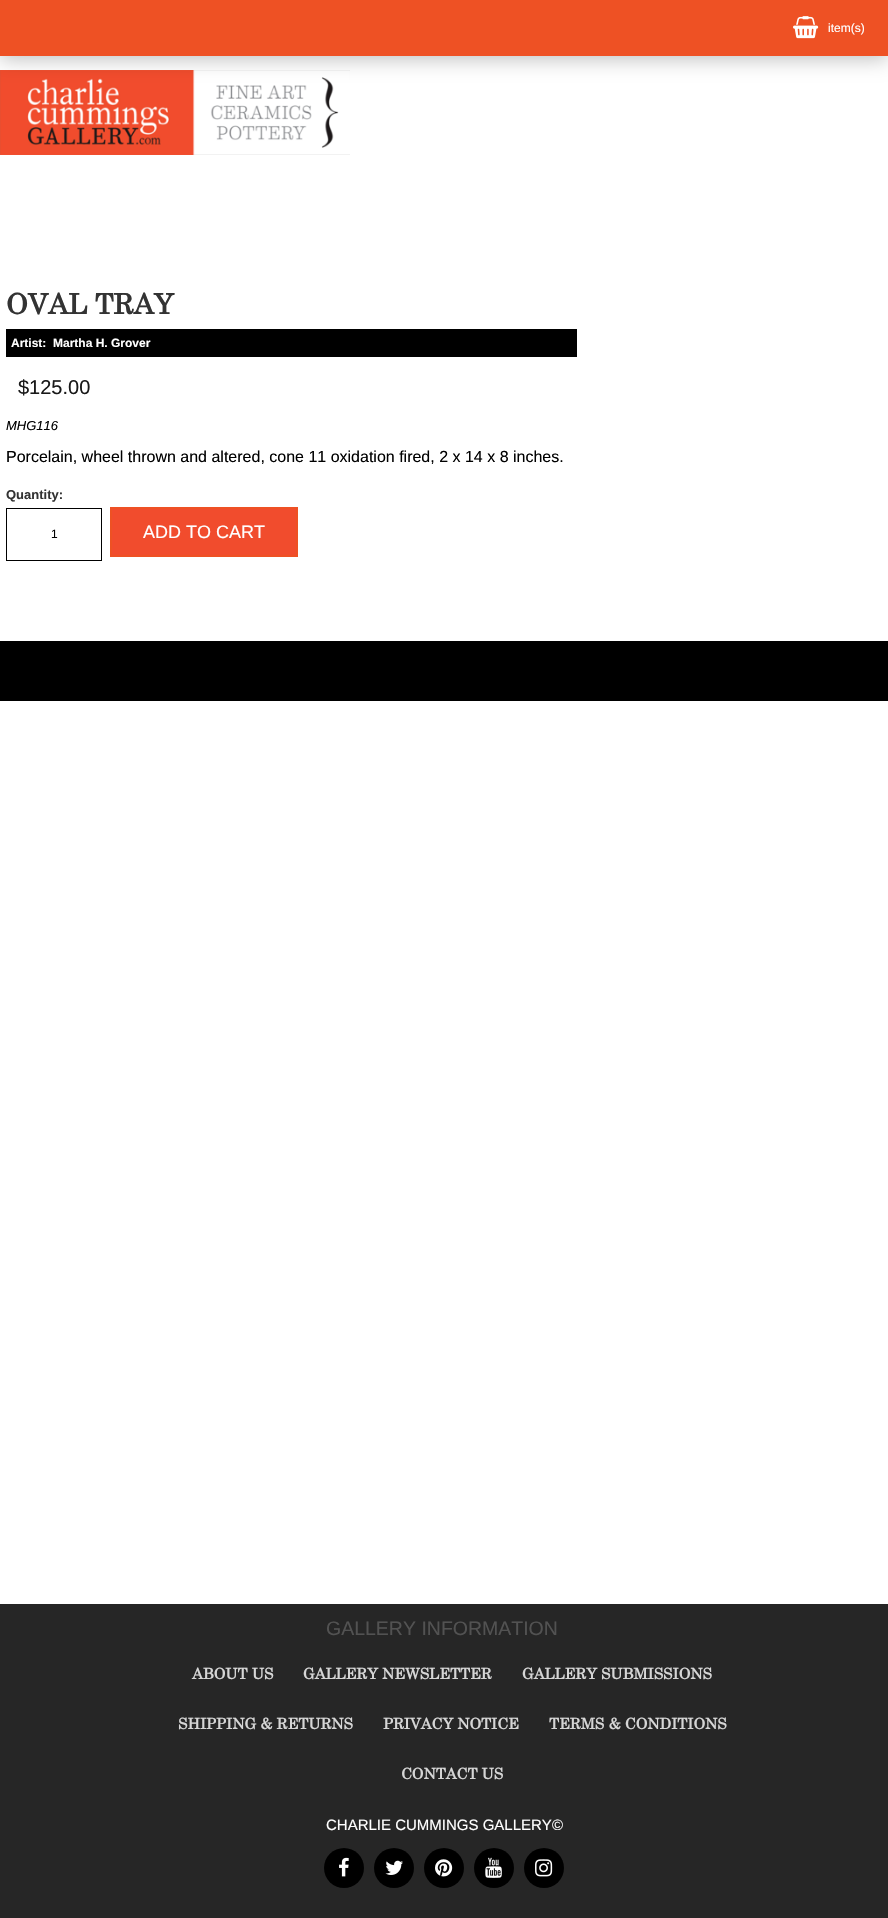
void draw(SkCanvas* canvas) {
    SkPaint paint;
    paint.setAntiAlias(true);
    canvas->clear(0xFFFFFFFF);
    paint.setColor(0xFF000000);
    canvas->drawRect(SkRect::MakeXYWH(0, 641, 888, 60), paint);
    canvas->drawImageRect(SkImages::DeferredFromEncodedData(SkData::MakeFromFileName("img1.png")), SkRect::MakeXYWH(0, 70, 350, 85), SkSamplingOptions());
    paint.setColor(0x40000000);
    paint.setMaskFilter(SkMaskFilter::MakeBlur(kNormal_SkBlurStyle, 10));
    canvas->drawRect(SkRect::MakeXYWH(0, 3, 888, 56), paint);
    paint.setMaskFilter(nullptr);
    paint.setColor(0xFFEE5124);
    canvas->drawRect(SkRect::MakeXYWH(0, 0, 888, 56), paint);
    canvas->drawImageRect(SkImages::DeferredFromEncodedData(SkData::MakeFromFileName("img2.png")), SkRect::MakeXYWH(793, 16, 26, 23), SkSamplingOptions());
    SkFont font1(fontMgr->matchFamilyStyle("Liberation Sans", SkFontStyle::Normal()), 12);
    font1.setSubpixel(true);
    paint.setColor(0xFFFFFFFF);
    canvas->drawString("item(s)", 828, 32, font1, paint);
    SkFont font2(fontMgr->matchFamilyStyle("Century", SkFontStyle::Bold()), 28);
    font2.setSubpixel(true);
    paint.setColor(0xFF333333);
    canvas->drawString("OVAL TRAY", 6, 314, font2, paint);
    paint.setColor(0xFF000000);
    canvas->drawRect(SkRect::MakeXYWH(6, 329, 571, 28), paint);
    SkFont font3(fontMgr->matchFamilyStyle("Liberation Sans", SkFontStyle::Bold()), 12);
    font3.setSubpixel(true);
    paint.setColor(0xFFFFFFFF);
    canvas->drawString("Artist:", 11, 347, font3, paint);
    canvas->drawString("Martha H. Grover", 53, 347, font3, paint);
    SkFont font4(fontMgr->matchFamilyStyle("Liberation Sans", SkFontStyle::Normal()), 20);
    font4.setSubpixel(true);
    paint.setColor(0xFF191919);
    canvas->drawString("$125.00", 18, 394, font4, paint);
    SkFont font5(fontMgr->matchFamilyStyle("Liberation Sans", SkFontStyle::Italic()), 13);
    font5.setSubpixel(true);
    paint.setColor(0xFF000000);
    canvas->drawString("MHG116", 6, 430, font5, paint);
    SkFont font6(fontMgr->matchFamilyStyle("Liberation Sans", SkFontStyle::Normal()), 16);
    font6.setSubpixel(true);
    canvas->drawString("Porcelain, wheel thrown and altered, cone 11 oxidation fired, 2 x 14 x 8 inches.", 6, 462, font6, paint);
    SkFont font7(fontMgr->matchFamilyStyle("Liberation Sans", SkFontStyle::Bold()), 13);
    font7.setSubpixel(true);
    paint.setColor(0xFF333333);
    canvas->drawString("Quantity:", 6, 499, font7, paint);
    paint.setStyle(SkPaint::kStroke_Style);
    paint.setStrokeWidth(1);
    paint.setColor(0xFF000000);
    canvas->drawRect(SkRect::MakeXYWH(6.5f, 508.5f, 95, 52), paint);
    paint.setStyle(SkPaint::kFill_Style);
    canvas->drawString("1", 51, 538, font1, paint);
    paint.setColor(0xFFF14C2D);
    canvas->drawRect(SkRect::MakeXYWH(111, 508, 186, 48), paint);
    paint.setStyle(SkPaint::kStroke_Style);
    paint.setStrokeWidth(2);
    paint.setColor(0xFFEE5124);
    canvas->drawRect(SkRect::MakeXYWH(111, 508, 186, 48), paint);
    SkFont font8(fontMgr->matchFamilyStyle("Liberation Sans", SkFontStyle::Normal()), 18);
    font8.setSubpixel(true);
    paint.setStyle(SkPaint::kFill_Style);
    paint.setColor(0xFFFFFFFF);
    canvas->drawString("ADD TO CART", 143, 538, font8, paint);
    paint.setColor(0xFF262626);
    canvas->drawRect(SkRect::MakeXYWH(0, 1604, 888, 314), paint);
    SkFont font9(fontMgr->matchFamilyStyle("Liberation Sans", SkFontStyle::Normal()), 19.5f);
    font9.setSubpixel(true);
    paint.setColor(0xFF525252);
    canvas->drawString("GALLERY INFORMATION", 326, 1635, font9, paint);
    SkFont font10(fontMgr->matchFamilyStyle("Century", SkFontStyle::Bold()), 15);
    font10.setSubpixel(true);
    paint.setColor(0xFFD6D6D6);
    canvas->drawString("ABOUT US", 192, 1679, font10, paint);
    canvas->drawString("GALLERY NEWSLETTER", 303, 1679, font10, paint);
    canvas->drawString("GALLERY SUBMISSIONS", 522, 1679, font10, paint);
    canvas->drawString("SHIPPING & RETURNS", 178, 1729, font10, paint);
    canvas->drawString("PRIVACY NOTICE", 383, 1729, font10, paint);
    canvas->drawString("TERMS & CONDITIONS", 549, 1729, font10, paint);
    canvas->drawString("CONTACT US", 401, 1779, font10, paint);
    SkFont font11(fontMgr->matchFamilyStyle("Liberation Sans", SkFontStyle::Normal()), 15);
    font11.setSubpixel(true);
    paint.setColor(0xFFFFFFFF);
    canvas->drawString("CHARLIE CUMMINGS GALLERY©", 326, 1830, font11, paint);
    paint.setColor(0xFF000000);
    canvas->drawCircle(344, 1868, 20, paint);
    canvas->drawImageRect(SkImages::DeferredFromEncodedData(SkData::MakeFromFileName("img3.png")), SkRect::MakeXYWH(339, 1857, 10, 20), SkSamplingOptions());
    canvas->drawCircle(394, 1868, 20, paint);
    canvas->drawImageRect(SkImages::DeferredFromEncodedData(SkData::MakeFromFileName("img4.png")), SkRect::MakeXYWH(385, 1860, 18, 15), SkSamplingOptions());
    canvas->drawCircle(444, 1868, 20, paint);
    canvas->drawImageRect(SkImages::DeferredFromEncodedData(SkData::MakeFromFileName("img5.png")), SkRect::MakeXYWH(435, 1859, 18, 18), SkSamplingOptions());
    canvas->drawCircle(494, 1868, 20, paint);
    canvas->drawImageRect(SkImages::DeferredFromEncodedData(SkData::MakeFromFileName("img6.png")), SkRect::MakeXYWH(485, 1857, 17, 21), SkSamplingOptions());
    canvas->drawCircle(544, 1868, 20, paint);
    canvas->drawImageRect(SkImages::DeferredFromEncodedData(SkData::MakeFromFileName("img7.png")), SkRect::MakeXYWH(535, 1859, 18, 18), SkSamplingOptions());
}
